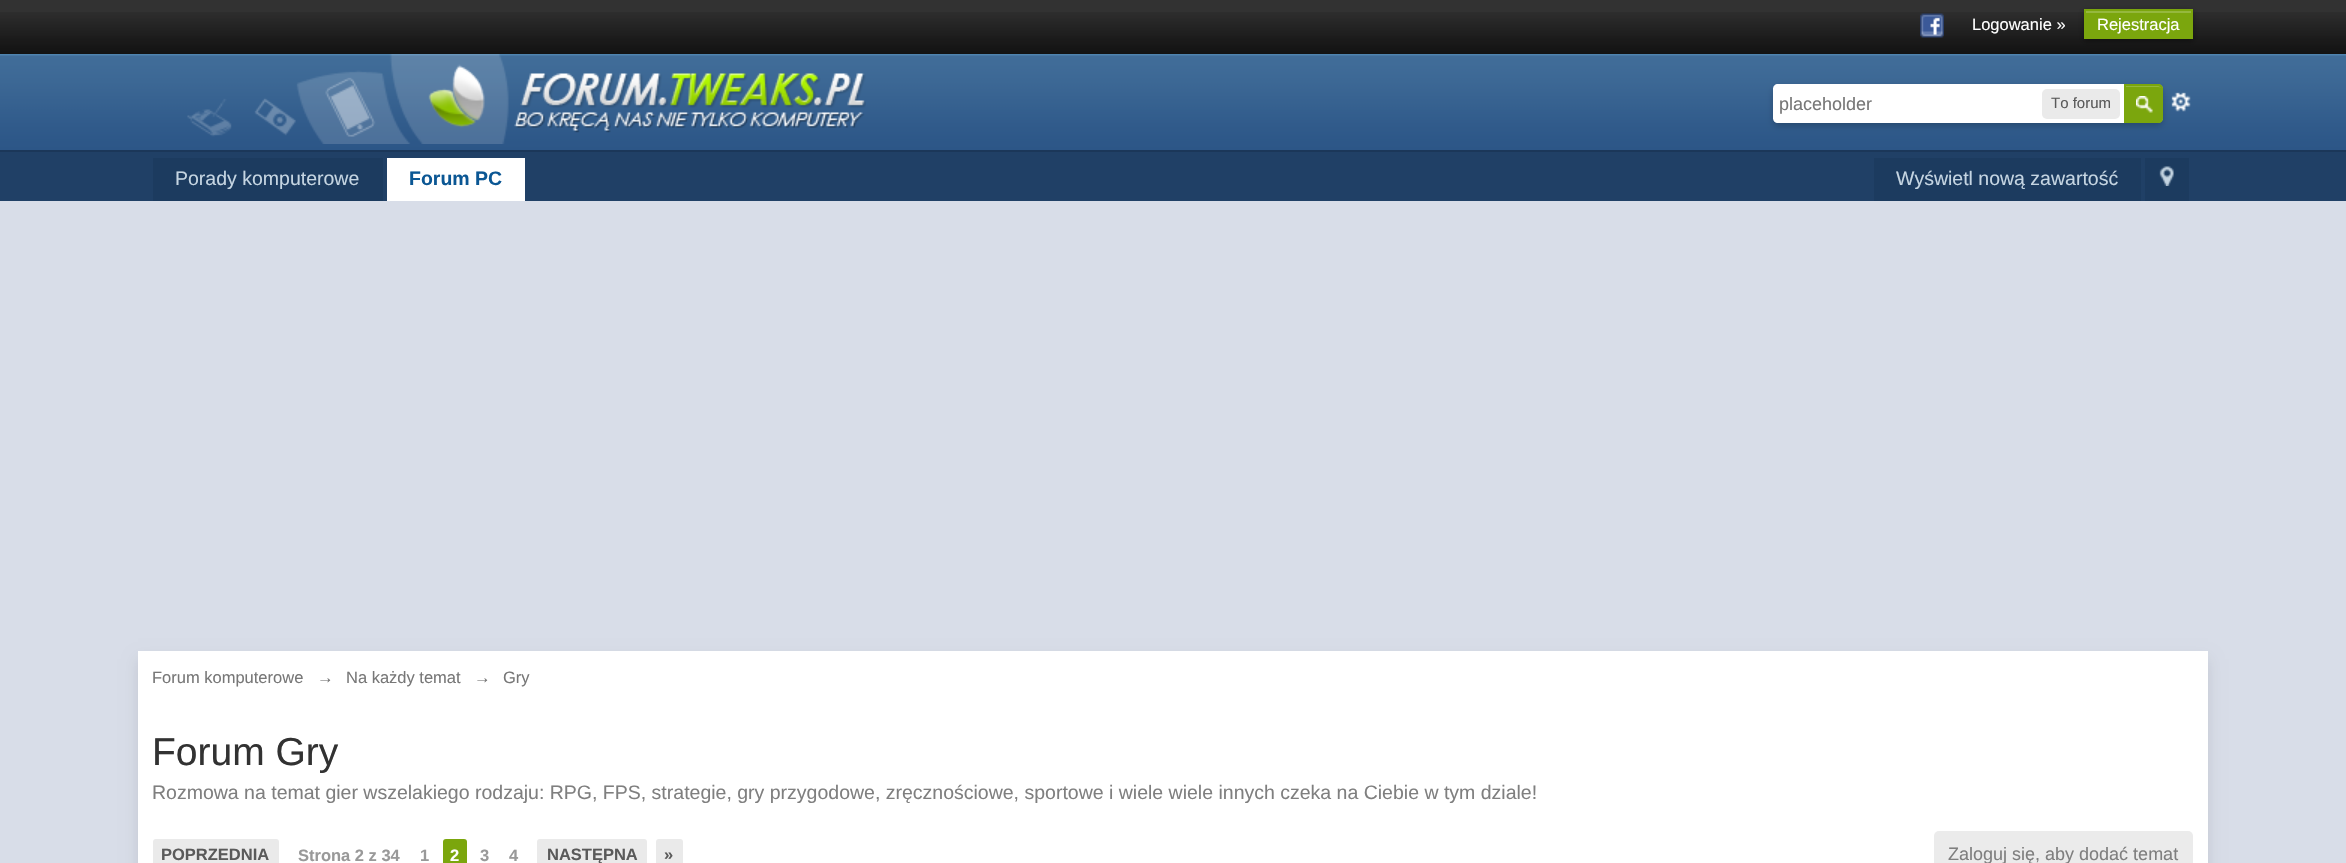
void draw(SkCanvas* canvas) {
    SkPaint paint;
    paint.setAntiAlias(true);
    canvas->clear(0xFFD8DDE8);
    paint.setColor(0xFF323232);
    canvas->drawRect(SkRect::MakeXYWH(0, 0, 2346, 12), paint);
    canvas->drawImageRect(SkImages::DeferredFromEncodedData(SkData::MakeFromFileName("img1.png")), SkRect::MakeXYWH(0, 12, 2346, 42), SkSamplingOptions());
    canvas->drawImageRect(SkImages::DeferredFromEncodedData(SkData::MakeFromFileName("img2.png")), SkRect::MakeXYWH(1920, 13, 24, 25), SkSamplingOptions());
    SkFont font1(fontMgr->matchFamilyStyle("Liberation Sans", SkFontStyle::Normal()), 16.5f);
    font1.setSubpixel(true);
    paint.setColor(0xFFFFFFFF);
    canvas->drawString("Logowanie »", 1972, 30, font1, paint);
    paint.setColor(0x66000000);
    paint.setMaskFilter(SkMaskFilter::MakeBlur(kNormal_SkBlurStyle, 3));
    canvas->drawRect(SkRect::MakeXYWH(2084, 11, 109, 30), paint);
    paint.setMaskFilter(nullptr);
    paint.setColor(0xFF7BA60D);
    canvas->drawRect(SkRect::MakeXYWH(2086, 13, 105, 24), paint);
    paint.setColor(0xFF95B83D);
    canvas->drawRect(SkRect::MakeXYWH(2085, 11, 107, 2), paint);
    paint.setStyle(SkPaint::kStroke_Style);
    paint.setStrokeWidth(2);
    paint.setColor(0xFF7BA60D);
    canvas->drawRect(SkRect::MakeXYWH(2085, 10, 107, 28), paint);
    paint.setStyle(SkPaint::kFill_Style);
    paint.setColor(0xFFFFFFFF);
    canvas->drawString("Rejestracja", 2097, 30, font1, paint);
    canvas->drawImageRect(SkImages::DeferredFromEncodedData(SkData::MakeFromFileName("img3.png")), SkRect::MakeXYWH(0, 54, 2346, 96), SkSamplingOptions());
    paint.setColor(0xFF1B3759);
    canvas->drawRect(SkRect::MakeXYWH(0, 150, 2346, 2), paint);
    canvas->drawImageRect(SkImages::DeferredFromEncodedData(SkData::MakeFromFileName("img4.png")), SkRect::MakeXYWH(187, 54, 679, 90), SkSamplingOptions());
    canvas->drawImageRect(SkImages::DeferredFromEncodedData(SkData::MakeFromFileName("img6.png")), SkRect::MakeXYWH(2171, 92, 20, 20), SkSamplingOptions());
    paint.setColor(0x33000000);
    paint.setMaskFilter(SkMaskFilter::MakeBlur(kNormal_SkBlurStyle, 3));
    canvas->drawRoundRect(SkRect::MakeXYWH(1773, 87, 390, 39), 6, 6, paint);
    paint.setMaskFilter(nullptr);
    paint.setColor(0xFFFFFFFF);
    canvas->drawPath(SkPathBuilder().moveTo(1778, 84).lineTo(2157, 84).cubicTo(2160.5f, 84, 2163, 86.5f, 2163, 90).lineTo(2163, 117).cubicTo(2163, 120.5f, 2160.5f, 123, 2157, 123).lineTo(1778, 123).cubicTo(1775, 123, 1773, 121, 1773, 118).lineTo(1773, 89).cubicTo(1773, 86, 1775, 84, 1778, 84).close().detach(), paint);
    SkFont font2(fontMgr->matchFamilyStyle("Liberation Sans", SkFontStyle::Normal()), 18);
    font2.setSubpixel(true);
    paint.setColor(0xFF777777);
    canvas->drawString("placeholder", 1779, 110, font2, paint);
    paint.setColor(0xFFEAEAEA);
    canvas->drawRoundRect(SkRect::MakeXYWH(2042, 89, 78, 30), 5, 5, paint);
    SkFont font3(fontMgr->matchFamilyStyle("Liberation Sans", SkFontStyle::Normal()), 15);
    font3.setSubpixel(true);
    paint.setColor(0xFF5A5A5A);
    canvas->drawString("To forum", 2051, 108, font3, paint);
    paint.setColor(0xFF7BA60D);
    canvas->drawPath(SkPathBuilder().moveTo(2124, 84).lineTo(2158, 84).cubicTo(2161, 84, 2163, 86, 2163, 89).lineTo(2163, 118).cubicTo(2163, 121, 2161, 123, 2158, 123).lineTo(2124, 123).close().detach(), paint);
    canvas->drawImageRect(SkImages::DeferredFromEncodedData(SkData::MakeFromFileName("img5.png")), SkRect::MakeXYWH(2136, 96, 17, 17), SkSamplingOptions());
    paint.setColor(0xFF95B83D);
    canvas->drawPath(SkPathBuilder().moveTo(2126, 87).lineTo(2158, 87).cubicTo(2160, 87, 2162, 88, 2162, 90).lineTo(2162, 89).cubicTo(2162, 87.5f, 2160.5f, 86, 2159, 86).lineTo(2126, 86).close().detach(), paint);
    paint.setStyle(SkPaint::kStroke_Style);
    paint.setColor(0xFF7BA60D);
    canvas->drawPath(SkPathBuilder().moveTo(2125, 85).lineTo(2158, 85).cubicTo(2160, 85, 2162, 87, 2162, 89).lineTo(2162, 118).cubicTo(2162, 120, 2160, 122, 2158, 122).lineTo(2125, 122).close().detach(), paint);
    paint.setStyle(SkPaint::kFill_Style);
    paint.setColor(0xFF204066);
    canvas->drawRect(SkRect::MakeXYWH(0, 152, 2346, 49), paint);
    paint.setColor(0xFF1C3B5F);
    canvas->drawRect(SkRect::MakeXYWH(153, 158, 230, 43), paint);
    SkFont font4(fontMgr->matchFamilyStyle("Liberation Sans", SkFontStyle::Normal()), 19.5f);
    font4.setSubpixel(true);
    paint.setColor(0xFFC5D5E2);
    canvas->drawString("Porady komputerowe", 175, 185, font4, paint);
    paint.setColor(0xFFFFFFFF);
    canvas->drawRect(SkRect::MakeXYWH(387, 158, 138, 43), paint);
    SkFont font5(fontMgr->matchFamilyStyle("Liberation Sans", SkFontStyle::Bold()), 19.5f);
    font5.setSubpixel(true);
    paint.setColor(0xFF0B5794);
    canvas->drawString("Forum PC", 409, 185, font5, paint);
    paint.setColor(0xFF1C3B5F);
    canvas->drawRect(SkRect::MakeXYWH(1874, 158, 267, 43), paint);
    paint.setColor(0xFFC5D5E2);
    canvas->drawString("Wyświetl nową zawartość", 1896, 185, font4, paint);
    paint.setColor(0xFF1C3B5F);
    canvas->drawRect(SkRect::MakeXYWH(2145, 158, 44, 43), paint);
    canvas->drawImageRect(SkImages::DeferredFromEncodedData(SkData::MakeFromFileName("img7.png")), SkRect::MakeXYWH(2159, 166, 15, 20), SkSamplingOptions());
    paint.setColor(0x1A000000);
    paint.setMaskFilter(SkMaskFilter::MakeBlur(kNormal_SkBlurStyle, 7));
    canvas->drawRect(SkRect::MakeXYWH(138, 659, 2070, 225), paint);
    paint.setMaskFilter(nullptr);
    paint.setColor(0xFFFFFFFF);
    canvas->drawRect(SkRect::MakeXYWH(138, 651, 2070, 212), paint);
    paint.setColor(0xFF777777);
    canvas->drawString("Forum komputerowe", 152, 683, font1, paint);
    canvas->drawString("→", 317, 683, font1, paint);
    canvas->drawString("Na każdy temat", 346, 683, font1, paint);
    canvas->drawString("→", 474, 683, font1, paint);
    canvas->drawString("Gry", 503, 683, font1, paint);
    SkFont font6(fontMgr->matchFamilyStyle("Liberation Sans", SkFontStyle::Normal()), 39);
    font6.setSubpixel(true);
    paint.setColor(0xFF323232);
    canvas->drawString("Forum Gry", 152, 765, font6, paint);
    paint.setColor(0xFF7F7F7F);
    canvas->drawString("Rozmowa na temat gier wszelakiego rodzaju: RPG, FPS, strategie, gry przygodowe, zręcznościowe, sportowe i wiele wiele innych czeka na Ciebie w tym dziale!", 152, 799, font4, paint);
    paint.setColor(0xFFEAEAEA);
    canvas->drawRoundRect(SkRect::MakeXYWH(153, 839, 126, 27), 3, 3, paint);
    SkFont font7(fontMgr->matchFamilyStyle("Liberation Sans", SkFontStyle::Bold()), 16.5f);
    font7.setSubpixel(true);
    paint.setColor(0xFF5A5A5A);
    canvas->drawString("POPRZEDNIA", 161, 860, font7, paint);
    paint.setColor(0xFF999999);
    canvas->drawString("Strona 2 z 34", 298, 861, font7, paint);
    canvas->drawString("1", 420, 861, font7, paint);
    paint.setColor(0xFF7BA60D);
    canvas->drawRoundRect(SkRect::MakeXYWH(443, 839, 24, 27), 3, 3, paint);
    paint.setColor(0xFFFFFFFF);
    canvas->drawString("2", 450, 861, font7, paint);
    paint.setColor(0xFF999999);
    canvas->drawString("3", 480, 861, font7, paint);
    canvas->drawString("4", 509, 861, font7, paint);
    paint.setColor(0xFFEAEAEA);
    canvas->drawRoundRect(SkRect::MakeXYWH(537, 839, 110, 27), 3, 3, paint);
    paint.setColor(0xFF5A5A5A);
    canvas->drawString("NASTĘPNA", 547, 860, font7, paint);
    paint.setColor(0xFFEAEAEA);
    canvas->drawRoundRect(SkRect::MakeXYWH(656, 839, 27, 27), 3, 3, paint);
    paint.setColor(0xFF5A5A5A);
    canvas->drawString("»", 664, 860, font7, paint);
    paint.setColor(0xFFEBEBEB);
    canvas->drawRoundRect(SkRect::MakeXYWH(1934, 831, 259, 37), 5, 5, paint);
    paint.setColor(0xFF7F7F7F);
    canvas->drawString("Zaloguj się, aby dodać temat", 1948, 860, font2, paint);
}
